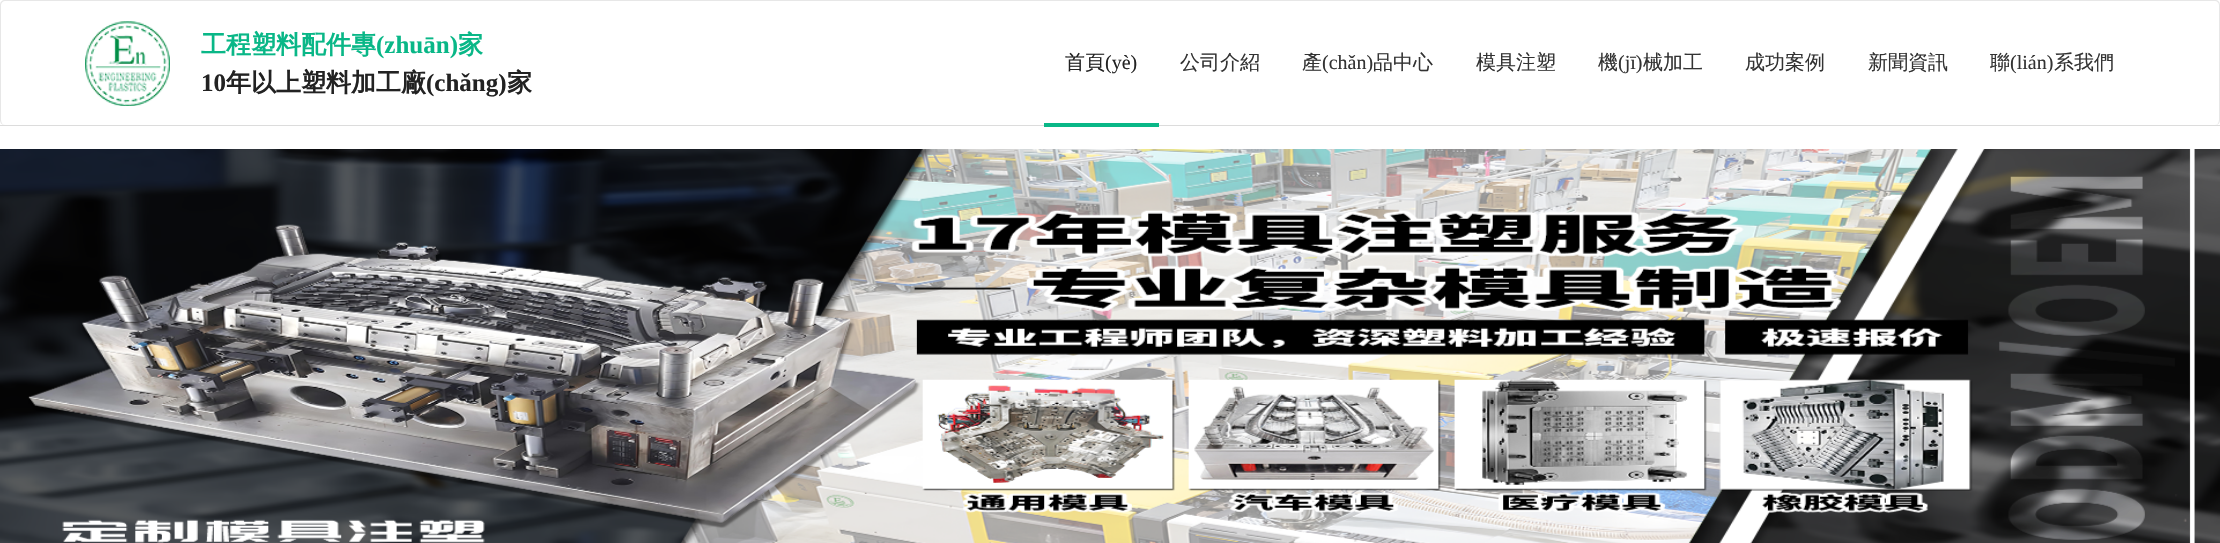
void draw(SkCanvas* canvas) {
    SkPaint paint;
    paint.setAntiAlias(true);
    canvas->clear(0xFFFFFFFF);
    paint.setColor(0xFFDCDCDC);
    canvas->drawRect(SkRect::MakeXYWH(0, 125, 2220, 1), paint);
    paint.setColor(0xFFE7E7E7);
    canvas->drawPath(SkPathBuilder(SkPathFillType::kEvenOdd).moveTo(5, 0).lineTo(2215, 0).cubicTo(2218, 0, 2220, 2, 2220, 5).lineTo(2220, 120).cubicTo(2220, 123, 2218, 125, 2215, 125).lineTo(5, 125).cubicTo(2, 125, 0, 123, 0, 120).lineTo(0, 5).cubicTo(0, 2, 2, 0, 5, 0).close().moveTo(5, 1).lineTo(2215, 1).cubicTo(2217, 1, 2219, 3, 2219, 5).lineTo(2219, 120).cubicTo(2219, 123, 2217, 125, 2215, 125).lineTo(5, 125).cubicTo(3, 125, 1, 123, 1, 120).lineTo(1, 5).cubicTo(1, 3, 3, 1, 5, 1).close().detach(), paint);
    canvas->drawImageRect(SkImages::DeferredFromEncodedData(SkData::MakeFromFileName("img1.png")), SkRect::MakeXYWH(85, 21, 85, 85), SkSamplingOptions());
    SkFont font1(fontMgr->matchFamilyStyle("WenQuanYi Zen Hei", SkFontStyle::Bold()), 25);
    font1.setSubpixel(true);
    paint.setColor(0xFF09B787);
    canvas->drawString("工程塑料配件專", 201, 53, font1, paint);
    SkFont font2(fontMgr->matchFamilyStyle("Liberation Serif", SkFontStyle::Bold()), 25);
    font2.setSubpixel(true);
    canvas->drawString("(zhuān)", 376, 53, font2, paint);
    canvas->drawString("家", 458, 53, font1, paint);
    paint.setColor(0xFF222222);
    canvas->drawString("10", 201, 91, font2, paint);
    canvas->drawString("年以上塑料加工廠", 226, 91, font1, paint);
    canvas->drawString("(chǎng)", 426, 91, font2, paint);
    canvas->drawString("家", 507, 91, font1, paint);
    SkFont font3(fontMgr->matchFamilyStyle("WenQuanYi Zen Hei", SkFontStyle(500, SkFontStyle::kNormal_Width, SkFontStyle::kUpright_Slant)), 20);
    font3.setSubpixel(true);
    canvas->drawString("首頁", 1065, 69, font3, paint);
    SkFont font4(fontMgr->matchFamilyStyle("Liberation Serif", SkFontStyle::Normal()), 20);
    font4.setSubpixel(true);
    canvas->drawString("(yè)", 1105, 69, font4, paint);
    paint.setColor(0xFF09B787);
    canvas->drawRect(SkRect::MakeXYWH(1044, 123, 115, 4), paint);
    paint.setColor(0xFF333333);
    canvas->drawString("公司介紹", 1180, 69, font3, paint);
    canvas->drawString("產", 1302, 69, font3, paint);
    canvas->drawString("(chǎn)", 1322, 69, font4, paint);
    canvas->drawString("品中心", 1373, 69, font3, paint);
    canvas->drawString("模具注塑", 1476, 69, font3, paint);
    canvas->drawString("機", 1598, 69, font3, paint);
    canvas->drawString("(jī)", 1618, 69, font4, paint);
    canvas->drawString("械加工", 1643, 69, font3, paint);
    canvas->drawString("成功案例", 1745, 69, font3, paint);
    canvas->drawString("新聞資訊", 1868, 69, font3, paint);
    canvas->drawString("聯", 1990, 69, font3, paint);
    canvas->drawString("(lián)", 2010, 69, font4, paint);
    canvas->drawString("系我們", 2054, 69, font3, paint);
    canvas->drawImageRect(SkImages::DeferredFromEncodedData(SkData::MakeFromFileName("img2.png")), SkRect::MakeXYWH(0, 149, 2220, 394), SkSamplingOptions());
    canvas->drawImageRect(SkImages::DeferredFromEncodedData(SkData::MakeFromFileName("img3.png")), SkRect::MakeXYWH(2175, 494, 12, 28), SkSamplingOptions());
}
